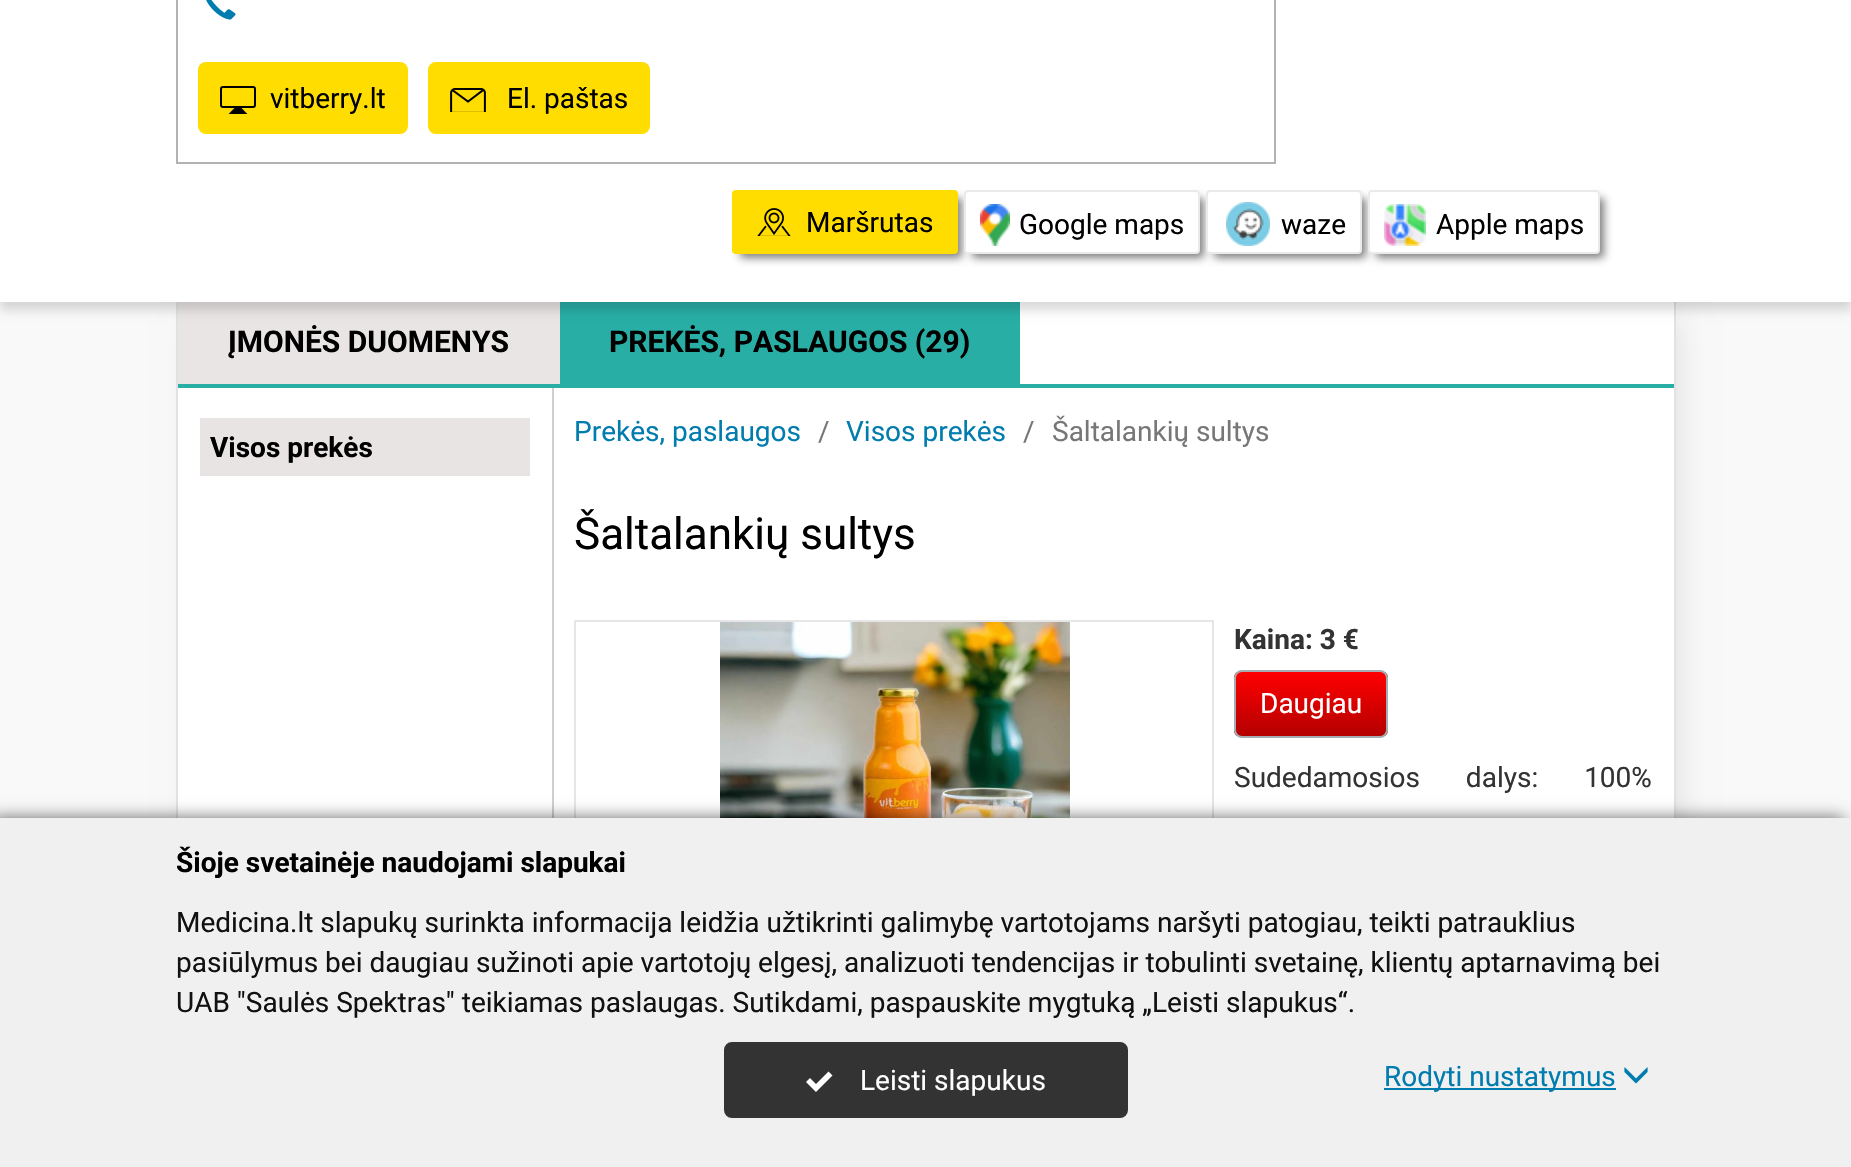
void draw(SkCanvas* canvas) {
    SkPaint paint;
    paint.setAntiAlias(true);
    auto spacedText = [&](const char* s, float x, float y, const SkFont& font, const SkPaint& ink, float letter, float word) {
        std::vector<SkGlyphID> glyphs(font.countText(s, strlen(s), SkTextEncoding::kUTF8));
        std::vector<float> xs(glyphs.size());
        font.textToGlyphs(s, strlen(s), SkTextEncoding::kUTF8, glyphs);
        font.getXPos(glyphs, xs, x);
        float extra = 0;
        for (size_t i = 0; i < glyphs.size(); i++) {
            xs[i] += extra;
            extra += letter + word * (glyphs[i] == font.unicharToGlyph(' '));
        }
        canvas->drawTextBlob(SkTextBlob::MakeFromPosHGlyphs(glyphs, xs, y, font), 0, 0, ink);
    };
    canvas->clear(0xFFF9F9F9);
    paint.setColor(0x1A000000);
    paint.setMaskFilter(SkMaskFilter::MakeBlur(kNormal_SkBlurStyle, 15));
    canvas->drawRect(SkRect::MakeXYWH(194, 320, 1484, 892), paint);
    paint.setMaskFilter(nullptr);
    paint.setColor(0xFFFFFFFF);
    canvas->drawRect(SkRect::MakeXYWH(178, 302, 1496, 516), paint);
    paint.setColor(0xFFE1E2E4);
    canvas->drawRect(SkRect::MakeXYWH(1674, 302, 2, 516), paint);
    canvas->drawRect(SkRect::MakeXYWH(176, 302, 2, 516), paint);
    paint.setColor(0xFFE9E5E4);
    canvas->drawRect(SkRect::MakeXYWH(178, 302, 382, 82), paint);
    paint.setColor(0xFF28AEA5);
    canvas->drawRect(SkRect::MakeXYWH(560, 302, 460, 82), paint);
    paint.setColor(0x26000000);
    paint.setMaskFilter(SkMaskFilter::MakeBlur(kNormal_SkBlurStyle, 5));
    canvas->drawRect(SkRect::MakeXYWH(0, -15, 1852, 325), paint);
    paint.setMaskFilter(nullptr);
    paint.setColor(0xFFFFFFFF);
    canvas->drawRect(SkRect::MakeXYWH(0, 0, 1851, 302), paint);
    paint.setStyle(SkPaint::kStroke_Style);
    paint.setStrokeWidth(2);
    paint.setColor(0xFFB2B2B2);
    canvas->drawRect(SkRect::MakeXYWH(177, -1, 1098, 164), paint);
    canvas->drawImageRect(SkImages::DeferredFromEncodedData(SkData::MakeFromFileName("img1.png")), SkRect::MakeXYWH(206, 0, 30, 20), SkSamplingOptions());
    paint.setStyle(SkPaint::kFill_Style);
    paint.setColor(0xFFFFDD00);
    canvas->drawRoundRect(SkRect::MakeXYWH(199, 63, 208, 70), 7, 7, paint);
    paint.setStyle(SkPaint::kStroke_Style);
    canvas->drawRoundRect(SkRect::MakeXYWH(199, 63, 208, 70), 7, 7, paint);
    paint.setColor(0xFF000000);
    canvas->drawRoundRect(SkRect::MakeXYWH(221, 87, 34, 20), 2, 2, paint);
    paint.setStrokeWidth(4.9f);
    canvas->drawPath(SkPathBuilder().moveTo(238, 109.5f).lineTo(239.5f, 109.5f).lineTo(241.5f, 111.5f).lineTo(234.5f, 111.5f).lineTo(236.5f, 109.5f).close().detach(), paint);
    SkFont font1(fontMgr->matchFamilyStyle("Roboto", SkFontStyle::Normal()), 28);
    font1.setSubpixel(true);
    paint.setStyle(SkPaint::kFill_Style);
    canvas->drawString("vitberry.lt", 270, 108, font1, paint);
    paint.setColor(0xFFFFDD00);
    canvas->drawRoundRect(SkRect::MakeXYWH(429, 63, 220, 70), 7, 7, paint);
    paint.setStyle(SkPaint::kStroke_Style);
    paint.setStrokeWidth(2);
    canvas->drawRoundRect(SkRect::MakeXYWH(429, 63, 220, 70), 7, 7, paint);
    canvas->drawImageRect(SkImages::DeferredFromEncodedData(SkData::MakeFromFileName("img2.png")), SkRect::MakeXYWH(450, 88, 36, 24), SkSamplingOptions());
    paint.setStyle(SkPaint::kFill_Style);
    paint.setColor(0xFF000000);
    canvas->drawString("El. paštas", 507, 108, font1, paint);
    paint.setColor(0x80000000);
    paint.setMaskFilter(SkMaskFilter::MakeBlur(kNormal_SkBlurStyle, 4));
    canvas->drawRoundRect(SkRect::MakeXYWH(740, 198, 222, 60), 2, 2, paint);
    paint.setMaskFilter(nullptr);
    paint.setColor(0xFFFFDD00);
    canvas->drawRoundRect(SkRect::MakeXYWH(732, 190, 226, 64), 4, 4, paint);
    canvas->drawImageRect(SkImages::DeferredFromEncodedData(SkData::MakeFromFileName("img3.png")), SkRect::MakeXYWH(757, 208, 34, 28), SkSamplingOptions());
    paint.setColor(0xFF000000);
    canvas->drawString("Maršrutas", 806, 232, font1, paint);
    paint.setColor(0x80000000);
    paint.setMaskFilter(SkMaskFilter::MakeBlur(kNormal_SkBlurStyle, 4));
    canvas->drawRoundRect(SkRect::MakeXYWH(972, 198, 232, 60), 2, 2, paint);
    paint.setMaskFilter(nullptr);
    paint.setColor(0xFFFFFFFF);
    canvas->drawRoundRect(SkRect::MakeXYWH(965, 191, 234, 62), 3, 3, paint);
    paint.setStyle(SkPaint::kStroke_Style);
    paint.setColor(0xFFEAEAEA);
    canvas->drawRoundRect(SkRect::MakeXYWH(965, 191, 234, 62), 3, 3, paint);
    canvas->drawImageRect(SkImages::DeferredFromEncodedData(SkData::MakeFromFileName("img4.png")), SkRect::MakeXYWH(980, 204, 30, 42), SkSamplingOptions());
    paint.setStyle(SkPaint::kFill_Style);
    paint.setColor(0xFF000000);
    canvas->drawString("Google maps", 1019, 234, font1, paint);
    paint.setColor(0x80000000);
    paint.setMaskFilter(SkMaskFilter::MakeBlur(kNormal_SkBlurStyle, 4));
    canvas->drawRoundRect(SkRect::MakeXYWH(1214, 198, 152, 60), 2, 2, paint);
    paint.setMaskFilter(nullptr);
    paint.setColor(0xFFFFFFFF);
    canvas->drawRoundRect(SkRect::MakeXYWH(1207, 191, 154, 62), 3, 3, paint);
    paint.setStyle(SkPaint::kStroke_Style);
    paint.setColor(0xFFEAEAEA);
    canvas->drawRoundRect(SkRect::MakeXYWH(1207, 191, 154, 62), 3, 3, paint);
    canvas->drawImageRect(SkImages::DeferredFromEncodedData(SkData::MakeFromFileName("img5.png")), SkRect::MakeXYWH(1226, 202, 44, 44), SkSamplingOptions());
    paint.setStyle(SkPaint::kFill_Style);
    paint.setColor(0xFF000000);
    canvas->drawString("waze", 1281, 234, font1, paint);
    paint.setColor(0x80000000);
    paint.setMaskFilter(SkMaskFilter::MakeBlur(kNormal_SkBlurStyle, 4));
    canvas->drawRoundRect(SkRect::MakeXYWH(1376, 198, 228, 60), 2, 2, paint);
    paint.setMaskFilter(nullptr);
    paint.setColor(0xFFFFFFFF);
    canvas->drawRoundRect(SkRect::MakeXYWH(1369, 191, 230, 62), 3, 3, paint);
    paint.setStyle(SkPaint::kStroke_Style);
    paint.setColor(0xFFEAEAEA);
    canvas->drawRoundRect(SkRect::MakeXYWH(1369, 191, 230, 62), 3, 3, paint);
    canvas->drawImageRect(SkImages::DeferredFromEncodedData(SkData::MakeFromFileName("img6.png")), SkRect::MakeXYWH(1384, 204, 42, 42), SkSamplingOptions());
    paint.setStyle(SkPaint::kFill_Style);
    paint.setColor(0xFF000000);
    canvas->drawString("Apple maps", 1436, 234, font1, paint);
    paint.setColor(0xFF28AEA5);
    canvas->drawRect(SkRect::MakeXYWH(178, 384, 1496, 4), paint);
    SkFont font2(fontMgr->matchFamilyStyle("Roboto", SkFontStyle::Bold()), 30);
    font2.setSubpixel(true);
    paint.setColor(0xFF000000);
    canvas->drawString("ĮMONĖS DUOMENYS", 228, 352, font2, paint);
    canvas->drawString("PREKĖS, PASLAUGOS (29)", 609, 352, font2, paint);
    paint.setColor(0xFFCFCFCF);
    canvas->drawRect(SkRect::MakeXYWH(552, 388, 2, 430), paint);
    paint.setColor(0xFFE8E4E3);
    canvas->drawRect(SkRect::MakeXYWH(200, 418, 330, 58), paint);
    SkFont font3(fontMgr->matchFamilyStyle("Roboto", SkFontStyle::Bold()), 28);
    font3.setSubpixel(true);
    paint.setColor(0xFF000000);
    canvas->drawString("Visos prekės", 210, 457, font3, paint);
    paint.setColor(0xFF007CAE);
    canvas->drawString("Prekės, paslaugos", 574, 441, font1, paint);
    paint.setColor(0xFF777777);
    canvas->drawString("/", 818, 441, font1, paint);
    paint.setColor(0xFF007CAE);
    canvas->drawString("Visos prekės", 846, 441, font1, paint);
    paint.setColor(0xFF777777);
    canvas->drawString("/", 1023, 441, font1, paint);
    canvas->drawString("Šaltalankių sultys", 1052, 441, font1, paint);
    SkFont font4(fontMgr->matchFamilyStyle("Roboto", SkFontStyle::Normal()), 44);
    font4.setSubpixel(true);
    paint.setColor(0xFF000000);
    canvas->drawString("Šaltalankių sultys", 574, 549, font4, paint);
    paint.setStyle(SkPaint::kStroke_Style);
    paint.setColor(0xFFE6E6E6);
    canvas->drawRect(SkRect::MakeXYWH(575, 621, 638, 352), paint);
    canvas->drawImageRect(SkImages::DeferredFromEncodedData(SkData::MakeFromFileName("img7.png")), SkRect::MakeXYWH(720, 622, 350, 196), SkSamplingOptions());
    paint.setStyle(SkPaint::kFill_Style);
    paint.setColor(0xFF333333);
    canvas->drawString("Kaina: 3 €", 1234, 649, font3, paint);
    canvas->save();
    canvas->clipPath(SkPathBuilder().moveTo(1242, 670).lineTo(1380, 670).cubicTo(1384.5f, 670, 1388, 673.5f, 1388, 678).lineTo(1388, 730).cubicTo(1388, 734.5f, 1384.5f, 738, 1380, 738).lineTo(1242, 738).cubicTo(1237.5f, 738, 1234, 734.5f, 1234, 730).lineTo(1234, 678).cubicTo(1234, 673.5f, 1237.5f, 670, 1242, 670).close().detach(), true);
    {
        const SkColor colors[] = {0xFFFF0000, 0xFFB40000};
        const float stops[] = {0, 1};
        const SkPoint ends[] = {{1311, 672}, {1311, 736}};
        paint.setShader(SkGradientShader::MakeLinear(ends, colors, stops, 2, SkTileMode::kClamp));
        paint.setAlpha(255);
    }
    canvas->drawRect(SkRect::MakeXYWH(1234, 672, 154, 64), paint);
    canvas->restore();
    paint.setStyle(SkPaint::kStroke_Style);
    paint.setShader(nullptr);
    paint.setColor(0xFFA5ACB2);
    canvas->drawRoundRect(SkRect::MakeXYWH(1235, 671, 152, 66), 7, 7, paint);
    paint.setStyle(SkPaint::kFill_Style);
    paint.setColor(0xFFFFFFFF);
    canvas->drawString("Daugiau", 1260, 713, font1, paint);
    paint.setColor(0xFF333333);
    spacedText("Sudedamosios dalys: 100%", 1234, 787, font1, paint, 0, 39);
    paint.setColor(0x99000000);
    paint.setMaskFilter(SkMaskFilter::MakeBlur(kNormal_SkBlurStyle, 8));
    canvas->drawRect(SkRect::MakeXYWH(-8, 818, 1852, 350), paint);
    paint.setMaskFilter(nullptr);
    paint.setColor(0xFFF0F0F0);
    canvas->drawRect(SkRect::MakeXYWH(0, 818, 1851, 349), paint);
    paint.setColor(0xFF000000);
    canvas->drawString("Šioje svetainėje naudojami slapukai", 176, 872, font3, paint);
    paint.setColor(0xFF111111);
    canvas->drawString("Medicina.lt slapukų surinkta informacija leidžia užtikrinti galimybę vartotojams naršyti patogiau, teikti patrauklius", 176, 932, font1, paint);
    canvas->drawString("pasiūlymus bei daugiau sužinoti apie vartotojų elgesį, analizuoti tendencijas ir tobulinti svetainę, klientų aptarnavimą bei", 176, 972, font1, paint);
    canvas->drawString("UAB \"Saulės Spektras\" teikiamas paslaugas. Sutikdami, paspauskite mygtuką „Leisti slapukus“.", 176, 1012, font1, paint);
    paint.setColor(0xFF333333);
    canvas->drawRoundRect(SkRect::MakeXYWH(725, 1043, 402, 74), 7, 7, paint);
    paint.setStyle(SkPaint::kStroke_Style);
    canvas->drawRoundRect(SkRect::MakeXYWH(725, 1043, 402, 74), 7, 7, paint);
    paint.setStyle(SkPaint::kFill_Style);
    paint.setColor(0xFFFFFFFF);
    canvas->drawPath(SkPathBuilder().moveTo(828.5f, 1071.5f).lineTo(816, 1084).lineTo(810, 1078).lineTo(806, 1082).lineTo(816, 1092).lineTo(832.5f, 1075.5f).close().detach(), paint);
    canvas->drawString("Leisti slapukus", 860, 1090, font1, paint);
    paint.setColor(0xFF007CAE);
    canvas->drawRect(SkRect::MakeXYWH(1384, 1088, 232, 2), paint);
    canvas->drawString("Rodyti nustatymus", 1384, 1086, font1, paint);
    canvas->drawImageRect(SkImages::DeferredFromEncodedData(SkData::MakeFromFileName("img8.png")), SkRect::MakeXYWH(1624, 1067, 24, 17), SkSamplingOptions());
}
